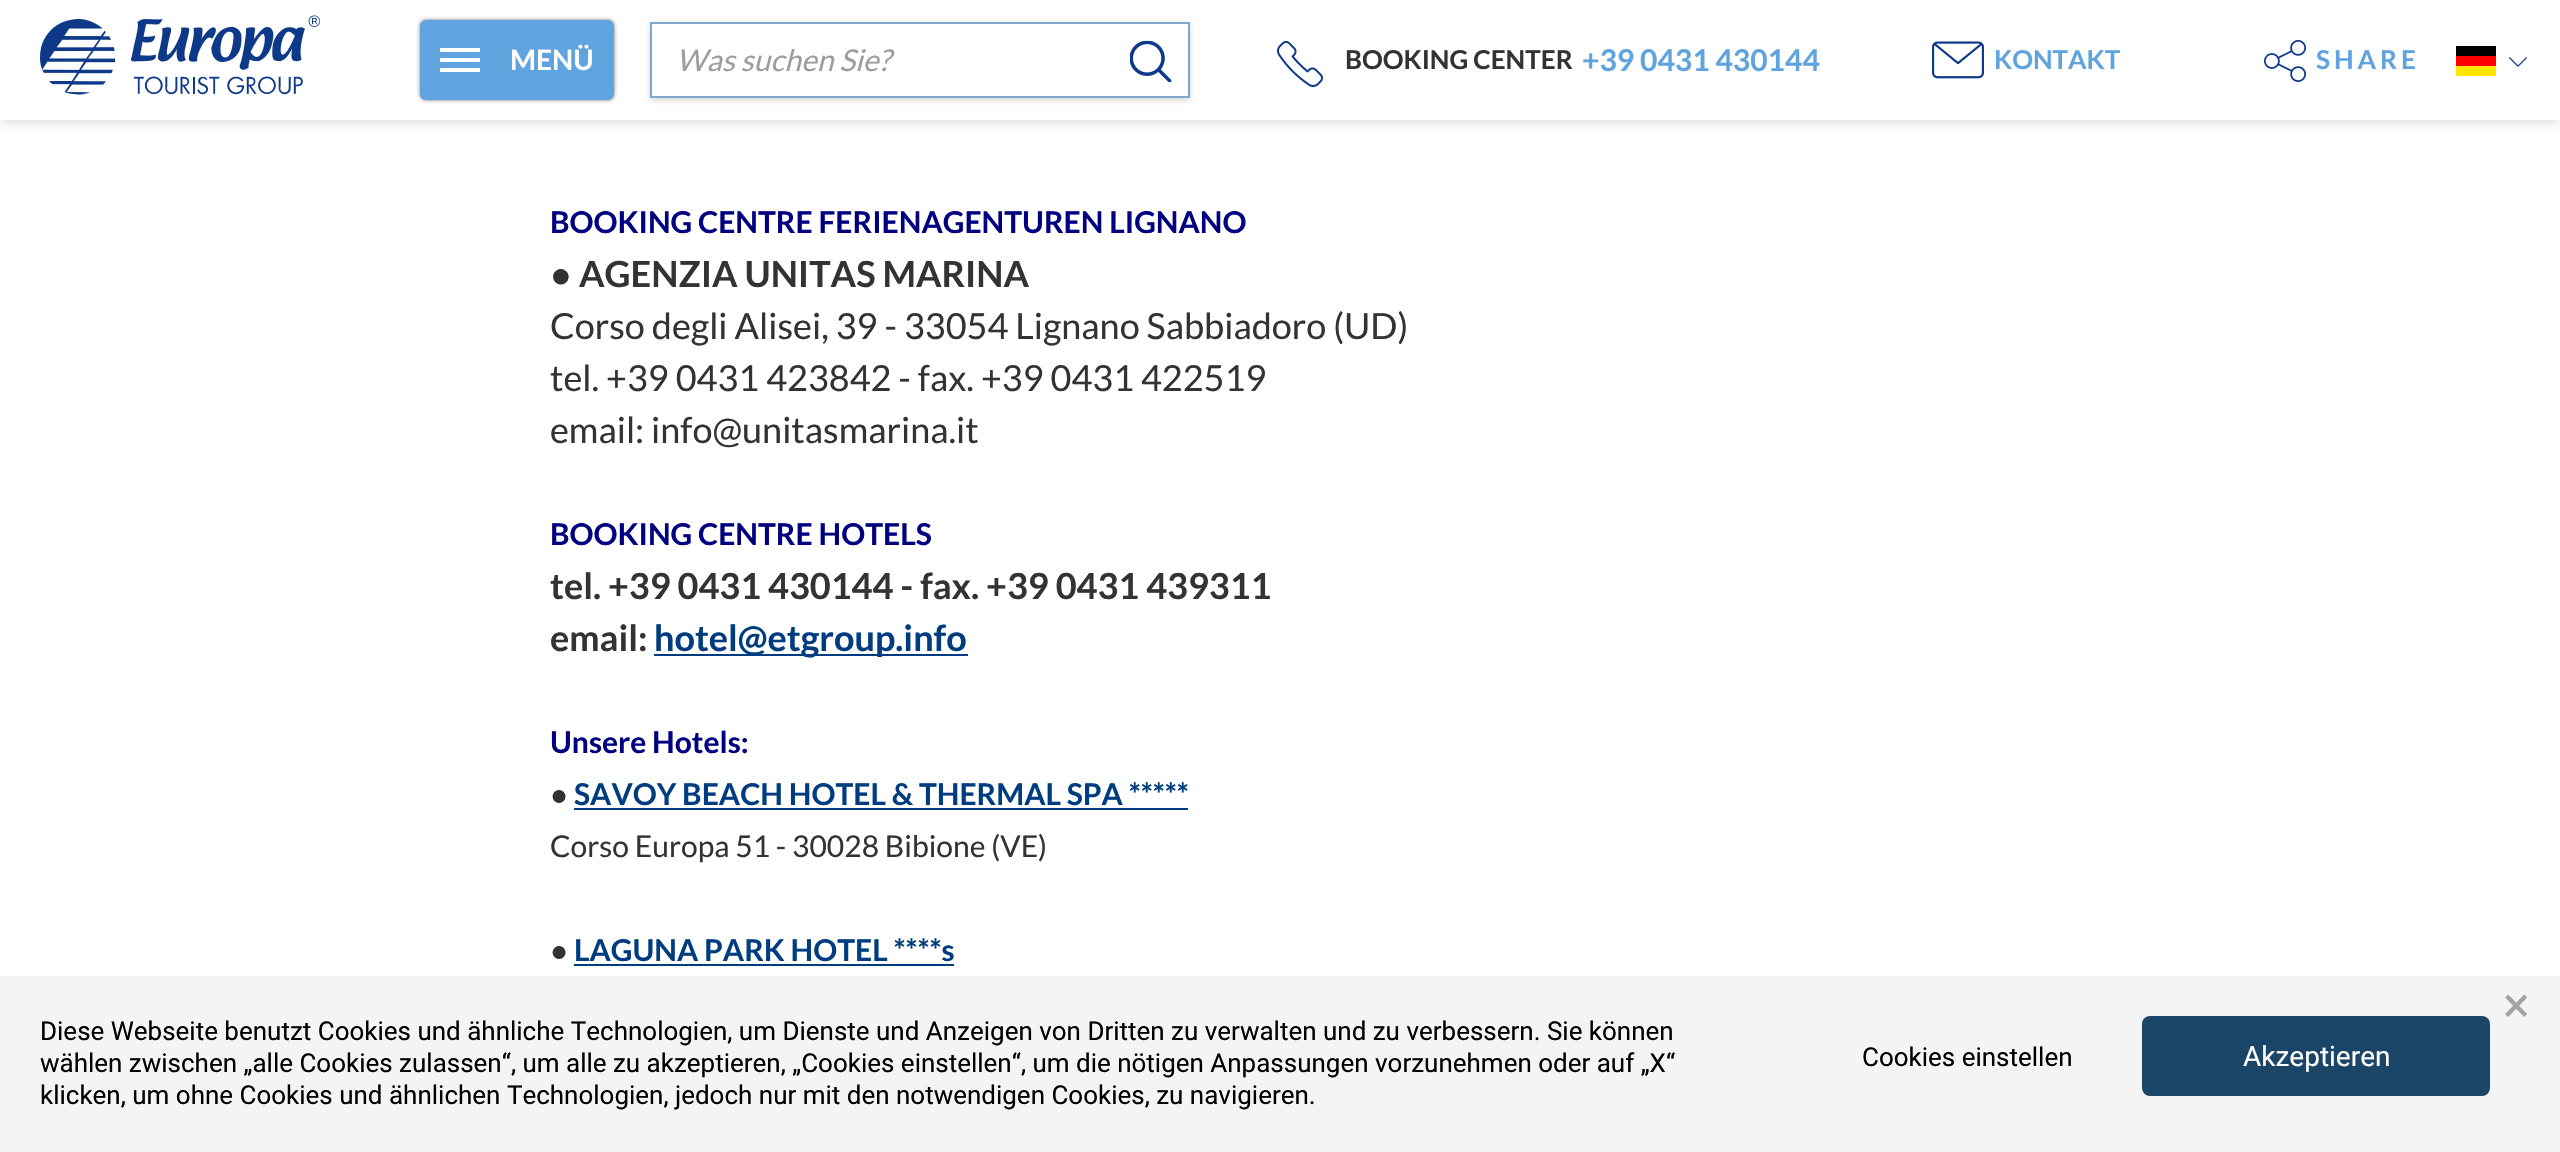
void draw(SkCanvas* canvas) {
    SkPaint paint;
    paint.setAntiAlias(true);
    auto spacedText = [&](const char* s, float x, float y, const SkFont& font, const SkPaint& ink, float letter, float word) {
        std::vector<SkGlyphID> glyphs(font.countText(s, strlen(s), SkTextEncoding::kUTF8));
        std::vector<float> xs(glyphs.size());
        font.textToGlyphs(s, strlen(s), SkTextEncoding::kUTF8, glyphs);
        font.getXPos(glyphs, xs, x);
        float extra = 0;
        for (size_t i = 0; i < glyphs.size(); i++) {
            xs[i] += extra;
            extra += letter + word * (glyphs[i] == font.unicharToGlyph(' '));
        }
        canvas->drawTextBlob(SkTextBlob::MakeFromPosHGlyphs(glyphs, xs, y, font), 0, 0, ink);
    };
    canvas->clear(0xFFFFFFFF);
    paint.setColor(0x26000000);
    paint.setMaskFilter(SkMaskFilter::MakeBlur(kNormal_SkBlurStyle, 5));
    canvas->drawRect(SkRect::MakeXYWH(0, 2, 2560, 120), paint);
    paint.setMaskFilter(nullptr);
    paint.setColor(0xFFFFFFFF);
    canvas->drawRect(SkRect::MakeXYWH(0, 0, 2560, 120), paint);
    canvas->drawImageRect(SkImages::DeferredFromEncodedData(SkData::MakeFromFileName("img1.png")), SkRect::MakeXYWH(40, 15, 280, 80), SkSamplingOptions());
    paint.setColor(0x80000000);
    paint.setMaskFilter(SkMaskFilter::MakeBlur(kNormal_SkBlurStyle, 2));
    canvas->drawRoundRect(SkRect::MakeXYWH(420, 20, 194, 80), 6, 6, paint);
    paint.setMaskFilter(nullptr);
    paint.setColor(0xFF5FA3DF);
    canvas->drawRoundRect(SkRect::MakeXYWH(420, 20, 194, 80), 6, 6, paint);
    paint.setColor(0xFFFFFFFF);
    canvas->drawRect(SkRect::MakeXYWH(440, 58, 40, 4), paint);
    canvas->drawRect(SkRect::MakeXYWH(440, 48, 40, 4), paint);
    canvas->drawRect(SkRect::MakeXYWH(440, 68, 40, 4), paint);
    SkFont font1(fontMgr->matchFamilyStyle("Lato", SkFontStyle::Bold()), 28);
    font1.setSubpixel(true);
    canvas->drawString("MENÜ", 510, 70, font1, paint);
    canvas->save();
    canvas->clipPath(SkPathBuilder(SkPathFillType::kEvenOdd).moveTo(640, 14).lineTo(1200, 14).lineTo(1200, 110).lineTo(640, 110).close().moveTo(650, 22).lineTo(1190, 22).lineTo(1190, 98).lineTo(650, 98).close().detach(), true);
    paint.setColor(0x29000000);
    paint.setMaskFilter(SkMaskFilter::MakeBlur(kNormal_SkBlurStyle, 3));
    canvas->drawRect(SkRect::MakeXYWH(650, 24, 540, 76), paint);
    paint.setMaskFilter(nullptr);
    canvas->restore();
    paint.setStyle(SkPaint::kStroke_Style);
    paint.setStrokeWidth(2);
    paint.setColor(0xFF80A9CC);
    canvas->drawRect(SkRect::MakeXYWH(651, 23, 538, 74), paint);
    SkFont font2(fontMgr->matchFamilyStyle("Lato", SkFontStyle::Italic()), 30);
    font2.setSubpixel(true);
    paint.setStyle(SkPaint::kFill_Style);
    paint.setColor(0xFF9D9D9D);
    canvas->drawString("Was suchen Sie?", 676, 71, font2, paint);
    canvas->drawImageRect(SkImages::DeferredFromEncodedData(SkData::MakeFromFileName("img2.png")), SkRect::MakeXYWH(1130, 40, 42, 43), SkSamplingOptions());
    canvas->drawImageRect(SkImages::DeferredFromEncodedData(SkData::MakeFromFileName("img3.png")), SkRect::MakeXYWH(1277, 41, 46, 46), SkSamplingOptions());
    SkFont font3(fontMgr->matchFamilyStyle("Lato", SkFontStyle::Bold()), 26);
    font3.setSubpixel(true);
    paint.setColor(0xFF333333);
    canvas->drawString("BOOKING CENTER", 1345, 69, font3, paint);
    SkFont font4(fontMgr->matchFamilyStyle("Lato", SkFontStyle::Bold()), 30);
    font4.setSubpixel(true);
    paint.setColor(0xFF5FA3DF);
    canvas->drawString("+39 0431 430144", 1582, 71, font4, paint);
    canvas->drawImageRect(SkImages::DeferredFromEncodedData(SkData::MakeFromFileName("img4.png")), SkRect::MakeXYWH(1932, 41, 52, 38), SkSamplingOptions());
    canvas->drawString("KONTAKT", 1994, 69, font3, paint);
    canvas->drawImageRect(SkImages::DeferredFromEncodedData(SkData::MakeFromFileName("img5.png")), SkRect::MakeXYWH(2264, 40, 42, 42), SkSamplingOptions());
    spacedText("SHARE", 2316, 69, font3, paint, 4, 0);
    paint.setColor(0xFF000000);
    canvas->drawRect(SkRect::MakeXYWH(2456, 46, 40, 10), paint);
    paint.setColor(0xFFFF0000);
    canvas->drawRect(SkRect::MakeXYWH(2456, 56, 40, 10), paint);
    canvas->drawImageRect(SkImages::DeferredFromEncodedData(SkData::MakeFromFileName("img6.png")), SkRect::MakeXYWH(2509, 57, 18, 10), SkSamplingOptions());
    paint.setColor(0xFFFFE600);
    canvas->drawRect(SkRect::MakeXYWH(2456, 66, 40, 10), paint);
    paint.setColor(0xFF000080);
    canvas->drawString("BOOKING CENTRE FERIENAGENTUREN LIGNANO", 550, 233, font4, paint);
    SkFont font5(fontMgr->matchFamilyStyle("Liberation Sans", SkFontStyle::Bold()), 36);
    font5.setSubpixel(true);
    paint.setColor(0xFF333333);
    canvas->drawString("●", 550, 287, font5, paint);
    SkFont font6(fontMgr->matchFamilyStyle("Lato", SkFontStyle::Bold()), 36);
    font6.setSubpixel(true);
    canvas->drawString("AGENZIA UNITAS MARINA", 579, 287, font6, paint);
    SkFont font7(fontMgr->matchFamilyStyle("Lato", SkFontStyle::Normal()), 36);
    font7.setSubpixel(true);
    canvas->drawString("Corso degli Alisei, 39 - 33054 Lignano Sabbiadoro (UD)", 550, 339, font7, paint);
    canvas->drawString("tel. +39 0431 423842 - fax. +39 0431 422519", 550, 391, font7, paint);
    canvas->drawString("email: info@unitasmarina.it", 550, 443, font7, paint);
    paint.setColor(0xFF000080);
    canvas->drawString("BOOKING CENTRE HOTELS", 550, 545, font4, paint);
    paint.setColor(0xFF333333);
    canvas->drawString("tel. +39 0431 430144 - fax. +39 0431 439311", 550, 599, font6, paint);
    canvas->drawString("email:", 550, 651, font6, paint);
    paint.setColor(0xFF003D80);
    canvas->drawRect(SkRect::MakeXYWH(654, 654, 314, 2), paint);
    canvas->drawString("hotel@etgroup.info", 654, 651, font6, paint);
    paint.setColor(0xFF000080);
    canvas->drawString("Unsere Hotels:", 550, 753, font4, paint);
    SkFont font8(fontMgr->matchFamilyStyle("Liberation Sans", SkFontStyle::Normal()), 30);
    font8.setSubpixel(true);
    paint.setColor(0xFF333333);
    canvas->drawString("●", 550, 805, font8, paint);
    paint.setColor(0xFF003D80);
    canvas->drawString("SAVOY BEACH HOTEL & THERMAL SPA *****", 574, 805, font4, paint);
    canvas->drawRect(SkRect::MakeXYWH(574, 808, 614, 2), paint);
    SkFont font9(fontMgr->matchFamilyStyle("Lato", SkFontStyle::Normal()), 30);
    font9.setSubpixel(true);
    paint.setColor(0xFF333333);
    canvas->drawString("Corso Europa 51 - 30028 Bibione (VE)", 550, 857, font9, paint);
    SkFont font10(fontMgr->matchFamilyStyle("Liberation Sans", SkFontStyle::Bold()), 30);
    font10.setSubpixel(true);
    canvas->drawString("●", 550, 961, font10, paint);
    paint.setColor(0xFF003D80);
    canvas->drawString("LAGUNA PARK HOTEL ****s", 574, 961, font4, paint);
    canvas->drawRect(SkRect::MakeXYWH(574, 964, 380, 2), paint);
    paint.setColor(0xFFF4F4F4);
    canvas->drawRect(SkRect::MakeXYWH(0, 976, 2560, 176), paint);
    SkFont font11(fontMgr->matchFamilyStyle("Roboto", SkFontStyle::Normal()), 50);
    font11.setSubpixel(true);
    paint.setColor(0xFFA3A3A3);
    canvas->drawString("×", 2503, 1022, font11, paint);
    SkFont font12(fontMgr->matchFamilyStyle("Roboto", SkFontStyle::Normal()), 26);
    font12.setSubpixel(true);
    paint.setColor(0xFF000000);
    canvas->drawString("Diese Webseite benutzt Cookies und ähnliche Technologien, um Dienste und Anzeigen von Dritten zu verwalten und zu verbessern. Sie können", 40, 1040, font12, paint);
    canvas->drawString("wählen zwischen „alle Cookies zulassen“, um alle zu akzeptieren, „Cookies einstellen“, um die nötigen Anpassungen vorzunehmen oder auf „X“", 40, 1072, font12, paint);
    canvas->drawString("klicken, um ohne Cookies und ähnlichen Technologien, jedoch nur mit den notwendigen Cookies, zu navigieren.", 40, 1104, font12, paint);
    canvas->drawString("Cookies einstellen", 1862, 1066, font12, paint);
    paint.setColor(0xFF1B4566);
    canvas->drawRoundRect(SkRect::MakeXYWH(2142, 1016, 348, 80), 8, 8, paint);
    SkFont font13(fontMgr->matchFamilyStyle("Roboto", SkFontStyle::Normal()), 28);
    font13.setSubpixel(true);
    paint.setColor(0xFFFFFFFF);
    canvas->drawString("Akzeptieren", 2243, 1066, font13, paint);
}
